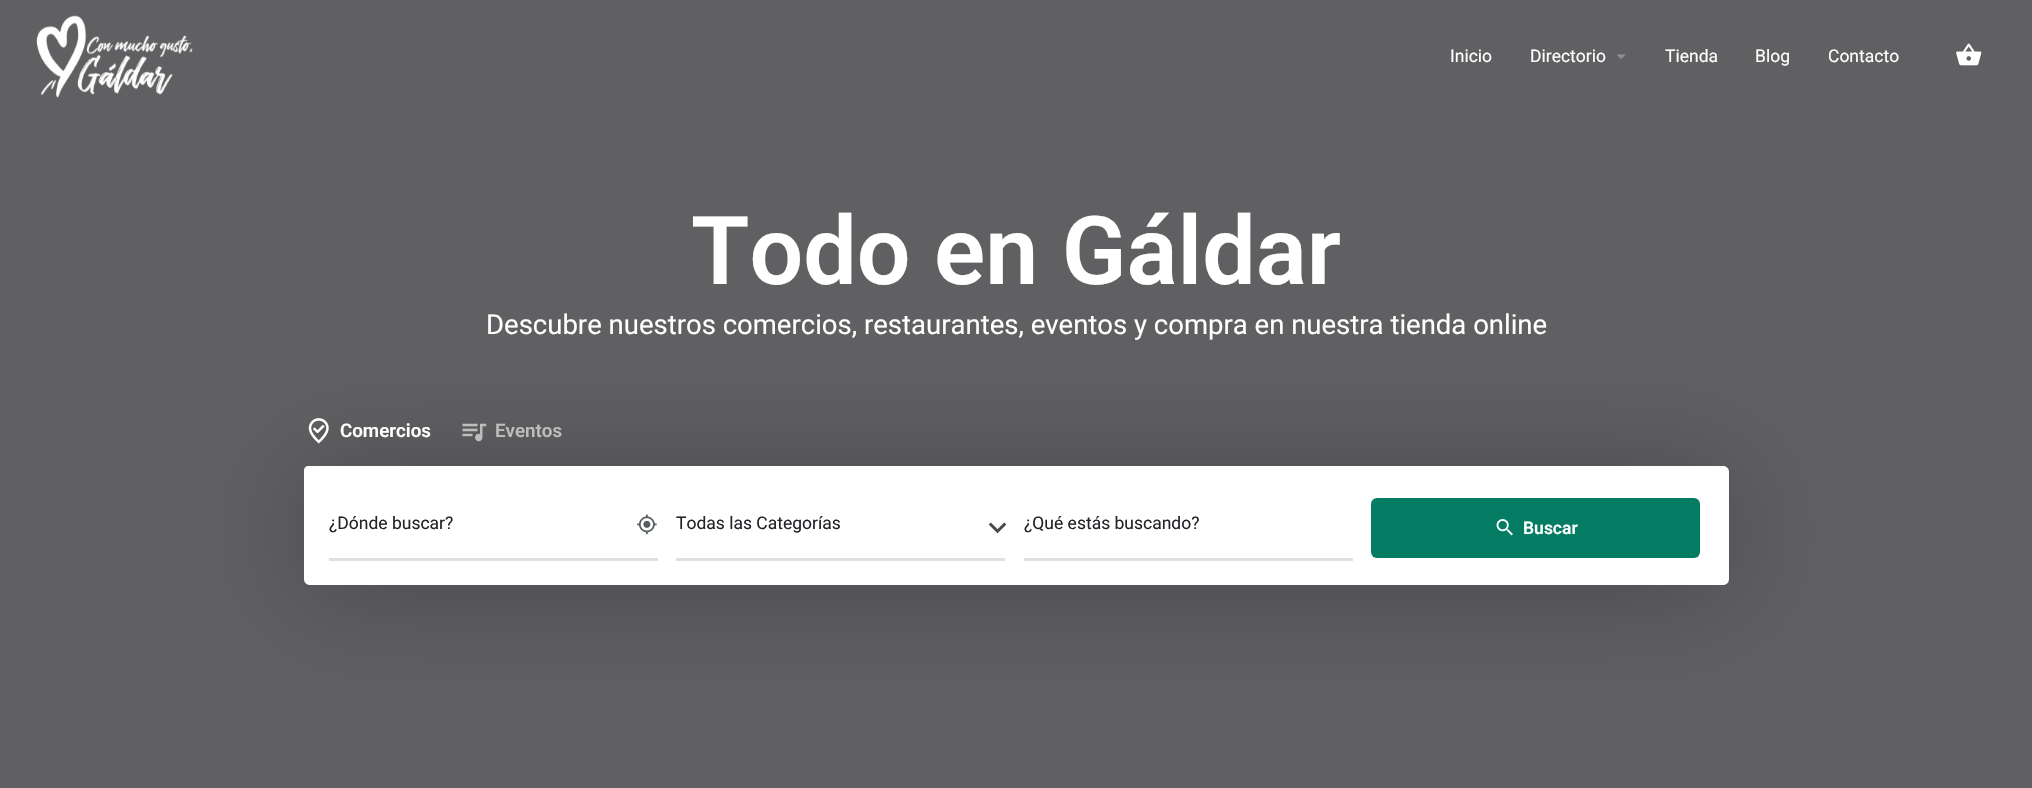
void draw(SkCanvas* canvas) {
    SkPaint paint;
    paint.setAntiAlias(true);
    canvas->clear(0xFF606063);
    canvas->drawImageRect(SkImages::DeferredFromEncodedData(SkData::MakeFromFileName("img1.png")), SkRect::MakeXYWH(36, 15, 157, 83), SkSamplingOptions());
    canvas->drawImageRect(SkImages::DeferredFromEncodedData(SkData::MakeFromFileName("img2.png")), SkRect::MakeXYWH(1956, 43, 26, 23), SkSamplingOptions());
    SkFont font1(fontMgr->matchFamilyStyle("Roboto", SkFontStyle::Normal()), 17.5f);
    font1.setSubpixel(true);
    paint.setColor(0xFFFFFFFF);
    canvas->drawString("Inicio", 1450, 62, font1, paint);
    canvas->drawString("Directorio", 1530, 62, font1, paint);
    paint.setColor(0xFF909092);
    canvas->drawPath(SkPathBuilder().moveTo(1616.5f, 54.5f).lineTo(1626, 54.5f).lineTo(1621, 59).close().detach(), paint);
    paint.setColor(0xFFFFFFFF);
    canvas->drawString("Tienda", 1665, 62, font1, paint);
    canvas->drawString("Blog", 1755, 62, font1, paint);
    canvas->drawString("Contacto", 1828, 62, font1, paint);
    SkFont font2(fontMgr->matchFamilyStyle("Roboto", SkFontStyle(600, SkFontStyle::kNormal_Width, SkFontStyle::kUpright_Slant)), 95);
    font2.setSubpixel(true);
    canvas->drawString("Todo en Gáldar", 691, 284, font2, paint);
    SkFont font3(fontMgr->matchFamilyStyle("Roboto", SkFontStyle::Normal()), 27.5f);
    font3.setSubpixel(true);
    canvas->drawString("Descubre nuestros comercios, restaurantes, eventos y compra en nuestra tienda online", 486, 334, font3, paint);
    paint.setColor(0x40000000);
    paint.setMaskFilter(SkMaskFilter::MakeBlur(kNormal_SkBlurStyle, 58));
    canvas->drawRoundRect(SkRect::MakeXYWH(304, 473, 1425, 118), 6, 6, paint);
    paint.setMaskFilter(nullptr);
    canvas->drawImageRect(SkImages::DeferredFromEncodedData(SkData::MakeFromFileName("img3.png")), SkRect::MakeXYWH(308, 418, 21, 26), SkSamplingOptions());
    SkFont font4(fontMgr->matchFamilyStyle("Roboto", SkFontStyle(600, SkFontStyle::kNormal_Width, SkFontStyle::kUpright_Slant)), 18.75f);
    font4.setSubpixel(true);
    paint.setColor(0xFFFFFFFF);
    canvas->drawString("Comercios", 340, 437, font4, paint);
    canvas->drawImageRect(SkImages::DeferredFromEncodedData(SkData::MakeFromFileName("img4.png")), SkRect::MakeXYWH(462, 423, 25, 19), SkSamplingOptions());
    paint.setColor(0xFFBDBDBE);
    canvas->drawString("Eventos", 495, 437, font4, paint);
    paint.setColor(0xFFFFFFFF);
    canvas->drawPath(SkPathBuilder().moveTo(308, 466).lineTo(1723, 466).cubicTo(1726.5f, 466, 1729, 468.5f, 1729, 472).lineTo(1729, 579).cubicTo(1729, 582.5f, 1726.5f, 585, 1723, 585).lineTo(310, 585).cubicTo(306.5f, 585, 304, 582.5f, 304, 579).lineTo(304, 470).cubicTo(304, 468, 306, 466, 308, 466).close().detach(), paint);
    paint.setColor(0xFF232328);
    canvas->drawString("¿Dónde buscar?", 329, 529, font1, paint);
    canvas->drawImageRect(SkImages::DeferredFromEncodedData(SkData::MakeFromFileName("img5.png")), SkRect::MakeXYWH(637, 514, 20, 21), SkSamplingOptions());
    paint.setColor(0xFFE0E0E0);
    canvas->drawRect(SkRect::MakeXYWH(329, 558, 329, 3), paint);
    paint.setColor(0xFF232328);
    canvas->drawString("Todas las Categorías", 676, 529, font1, paint);
    canvas->drawImageRect(SkImages::DeferredFromEncodedData(SkData::MakeFromFileName("img6.png")), SkRect::MakeXYWH(988, 522, 19, 12), SkSamplingOptions());
    paint.setColor(0xFFE0E0E0);
    canvas->drawRect(SkRect::MakeXYWH(676, 558, 329, 3), paint);
    paint.setColor(0xFF232328);
    canvas->drawString("¿Qué estás buscando?", 1024, 529, font1, paint);
    paint.setColor(0xFFE0E0E0);
    canvas->drawRect(SkRect::MakeXYWH(1024, 558, 329, 3), paint);
    paint.setColor(0xFF047C64);
    canvas->drawRoundRect(SkRect::MakeXYWH(1371, 498, 329, 60), 6, 6, paint);
    canvas->drawImageRect(SkImages::DeferredFromEncodedData(SkData::MakeFromFileName("img7.png")), SkRect::MakeXYWH(1496, 519, 17, 17), SkSamplingOptions());
    SkFont font5(fontMgr->matchFamilyStyle("Roboto", SkFontStyle(600, SkFontStyle::kNormal_Width, SkFontStyle::kUpright_Slant)), 17.5f);
    font5.setSubpixel(true);
    paint.setColor(0xFFFFFFFF);
    canvas->drawString("Buscar", 1523, 534, font5, paint);
}
